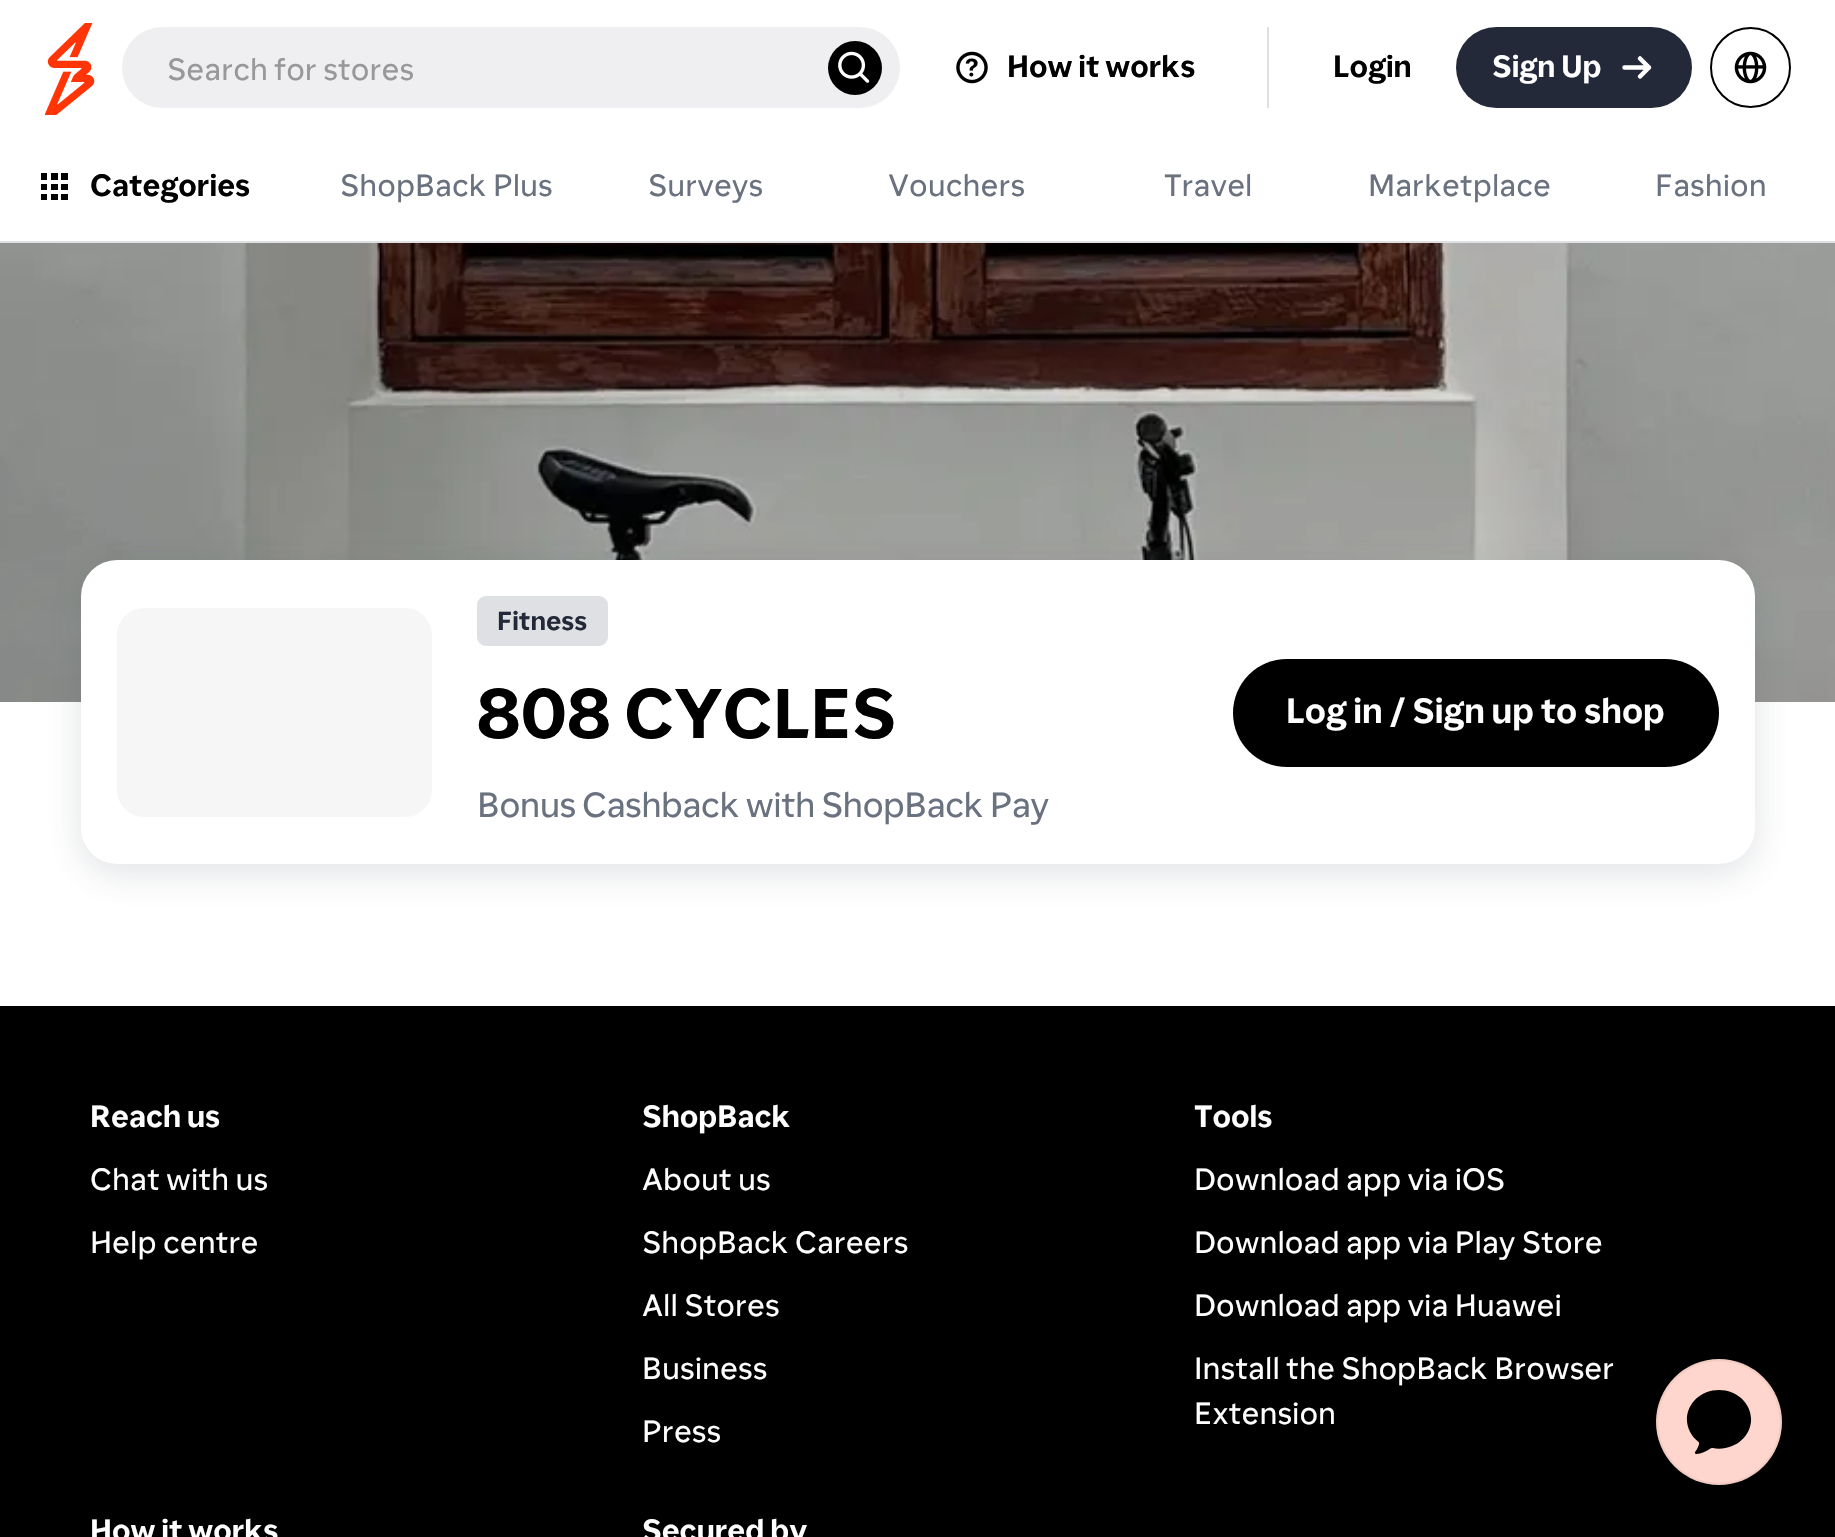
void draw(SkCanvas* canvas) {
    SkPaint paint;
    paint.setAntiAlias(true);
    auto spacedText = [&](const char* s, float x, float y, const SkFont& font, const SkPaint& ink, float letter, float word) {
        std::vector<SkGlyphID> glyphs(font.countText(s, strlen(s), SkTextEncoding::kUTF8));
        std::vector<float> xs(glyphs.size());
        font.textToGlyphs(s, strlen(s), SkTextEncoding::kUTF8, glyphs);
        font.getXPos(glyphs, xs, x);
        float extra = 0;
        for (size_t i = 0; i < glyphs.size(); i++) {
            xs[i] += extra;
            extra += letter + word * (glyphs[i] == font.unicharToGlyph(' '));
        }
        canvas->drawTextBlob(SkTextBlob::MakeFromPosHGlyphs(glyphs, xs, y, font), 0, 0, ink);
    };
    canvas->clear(0xFFFFFFFF);
    canvas->drawImageRect(SkImages::DeferredFromEncodedData(SkData::MakeFromFileName("img1.png")), SkRect::MakeXYWH(45, 23, 50, 92), SkSamplingOptions());
    paint.setColor(0xFFEFEFF1);
    canvas->drawRoundRect(SkRect::MakeXYWH(122, 27, 778, 81), 40.5f, 40.5f, paint);
    SkFont font1(fontMgr->matchFamilyStyle("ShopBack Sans", SkFontStyle::Normal()), 31.5f);
    font1.setSubpixel(true);
    paint.setColor(0xFF989899);
    canvas->drawString("Search for stores", 167, 80, font1, paint);
    paint.setColor(0xFF000000);
    canvas->drawCircle(855, 68, 27, paint);
    canvas->drawImageRect(SkImages::DeferredFromEncodedData(SkData::MakeFromFileName("img2.png")), SkRect::MakeXYWH(838, 51, 32, 32), SkSamplingOptions());
    canvas->drawImageRect(SkImages::DeferredFromEncodedData(SkData::MakeFromFileName("img3.png")), SkRect::MakeXYWH(956, 51, 32, 33), SkSamplingOptions());
    SkFont font2(fontMgr->matchFamilyStyle("ShopBack Sans", SkFontStyle::Bold()), 31.5f);
    font2.setSubpixel(true);
    canvas->drawString("How it works", 1007, 77, font2, paint);
    paint.setColor(0xFFDEE0E3);
    canvas->drawRect(SkRect::MakeXYWH(1267, 27, 2, 81), paint);
    paint.setColor(0xFF000000);
    canvas->drawString("Login", 1333, 77, font2, paint);
    paint.setColor(0xFF232938);
    canvas->drawRoundRect(SkRect::MakeXYWH(1456, 27, 236, 81), 40.5f, 40.5f, paint);
    paint.setColor(0xFFFFFFFF);
    canvas->drawString("Sign Up", 1492, 77, font2, paint);
    paint.setStyle(SkPaint::kStroke_Style);
    paint.setStrokeWidth(4.5f);
    paint.setStrokeCap(SkPaint::kRound_Cap);
    canvas->drawPath(SkPathBuilder().moveTo(1640, 58.5f).lineTo(1649, 67.5f).moveTo(1649, 67.5f).lineTo(1640, 76.5f).moveTo(1649, 67.5f).lineTo(1624.5f, 67.5f).detach(), paint);
    paint.setStrokeWidth(2);
    paint.setStrokeCap(SkPaint::kButt_Cap);
    paint.setColor(0xFF000000);
    canvas->drawCircle(1750.5f, 67.5f, 39.5f, paint);
    canvas->drawImageRect(SkImages::DeferredFromEncodedData(SkData::MakeFromFileName("img4.png")), SkRect::MakeXYWH(1734, 51, 33, 33), SkSamplingOptions());
    paint.setStyle(SkPaint::kFill_Style);
    paint.setColor(0xFFDEE0E3);
    canvas->drawRect(SkRect::MakeXYWH(0, 241, 1835, 2), paint);
    canvas->drawImageRect(SkImages::DeferredFromEncodedData(SkData::MakeFromFileName("img5.png")), SkRect::MakeXYWH(41, 173, 27, 27), SkSamplingOptions());
    paint.setColor(0xFF000000);
    canvas->drawString("Categories", 90, 196, font2, paint);
    paint.setColor(0xFF6A717F);
    canvas->drawString("ShopBack Plus", 340, 196, font1, paint);
    canvas->drawString("Surveys", 648, 196, font1, paint);
    canvas->drawString("Vouchers", 888, 196, font1, paint);
    canvas->drawString("Travel", 1164, 196, font1, paint);
    canvas->drawString("Marketplace", 1368, 196, font1, paint);
    canvas->drawString("Fashion", 1655, 196, font1, paint);
    canvas->drawImageRect(SkImages::DeferredFromEncodedData(SkData::MakeFromFileName("img6.png")), SkRect::MakeXYWH(0, 243, 1835, 459), SkSamplingOptions());
    paint.setColor(0x2940485A);
    paint.setMaskFilter(SkMaskFilter::MakeBlur(kNormal_SkBlurStyle, 18));
    canvas->drawRoundRect(SkRect::MakeXYWH(81, 569, 1674, 304), 36, 36, paint);
    paint.setMaskFilter(nullptr);
    paint.setColor(0xFFFFFFFF);
    canvas->drawRoundRect(SkRect::MakeXYWH(81, 560, 1674, 304), 36, 36, paint);
    paint.setColor(0xFFF6F6F7);
    canvas->drawRoundRect(SkRect::MakeXYWH(117, 608, 315, 209), 27, 27, paint);
    paint.setColor(0xFFDEE0E3);
    canvas->drawRoundRect(SkRect::MakeXYWH(478, 597, 129, 48), 8, 8, paint);
    paint.setStyle(SkPaint::kStroke_Style);
    canvas->drawRoundRect(SkRect::MakeXYWH(478, 597, 129, 48), 8, 8, paint);
    SkFont font3(fontMgr->matchFamilyStyle("ShopBack Sans", SkFontStyle::Bold()), 27);
    font3.setSubpixel(true);
    paint.setStyle(SkPaint::kFill_Style);
    paint.setColor(0xFF232938);
    canvas->drawString("Fitness", 497, 630, font3, paint);
    SkFont font4(fontMgr->matchFamilyStyle("ShopBack Sans", SkFontStyle::Bold()), 72);
    font4.setSubpixel(true);
    paint.setColor(0xFF000000);
    canvas->drawString("808 CYCLES", 477, 738, font4, paint);
    SkFont font5(fontMgr->matchFamilyStyle("ShopBack Sans", SkFontStyle::Normal()), 36);
    font5.setSubpixel(true);
    paint.setColor(0xFF6A717F);
    spacedText("Bonus Cashback with ShopBack Pay", 477, 817, font5, paint, -0.7f, 0);
    paint.setColor(0xFF000000);
    canvas->drawRoundRect(SkRect::MakeXYWH(1233, 659, 486, 108), 54, 54, paint);
    SkFont font6(fontMgr->matchFamilyStyle("ShopBack Sans", SkFontStyle::Bold()), 36);
    font6.setSubpixel(true);
    paint.setColor(0xFFFFFFFF);
    canvas->drawString("Log in / Sign up to shop", 1286, 723, font6, paint);
    paint.setColor(0xFF000000);
    canvas->drawRect(SkRect::MakeXYWH(0, 1006, 1835, 531), paint);
    paint.setColor(0xFFFFFFFF);
    canvas->drawString("Reach us", 90, 1127, font2, paint);
    canvas->drawString("Chat with us", 90, 1190, font1, paint);
    canvas->drawString("Help centre", 90, 1253, font1, paint);
    canvas->drawString("ShopBack", 642, 1127, font2, paint);
    canvas->drawString("About us", 642, 1190, font1, paint);
    canvas->drawString("ShopBack Careers", 642, 1253, font1, paint);
    canvas->drawString("All Stores", 642, 1316, font1, paint);
    canvas->drawString("Business", 642, 1379, font1, paint);
    canvas->drawString("Press", 642, 1442, font1, paint);
    canvas->drawString("Tools", 1194, 1127, font2, paint);
    canvas->drawString("Download app via iOS", 1194, 1190, font1, paint);
    canvas->drawString("Download app via Play Store", 1194, 1253, font1, paint);
    canvas->drawString("Download app via Huawei", 1194, 1316, font1, paint);
    canvas->drawString("Install the ShopBack Browser", 1194, 1379, font1, paint);
    canvas->drawString("Extension", 1194, 1424, font1, paint);
    canvas->drawString("How it works", 90, 1541, font2, paint);
    canvas->drawString("Secured by", 642, 1541, font2, paint);
    canvas->drawImageRect(SkImages::DeferredFromEncodedData(SkData::MakeFromFileName("img7.png")), SkRect::MakeXYWH(1656, 1359, 126, 126), SkSamplingOptions());
}
